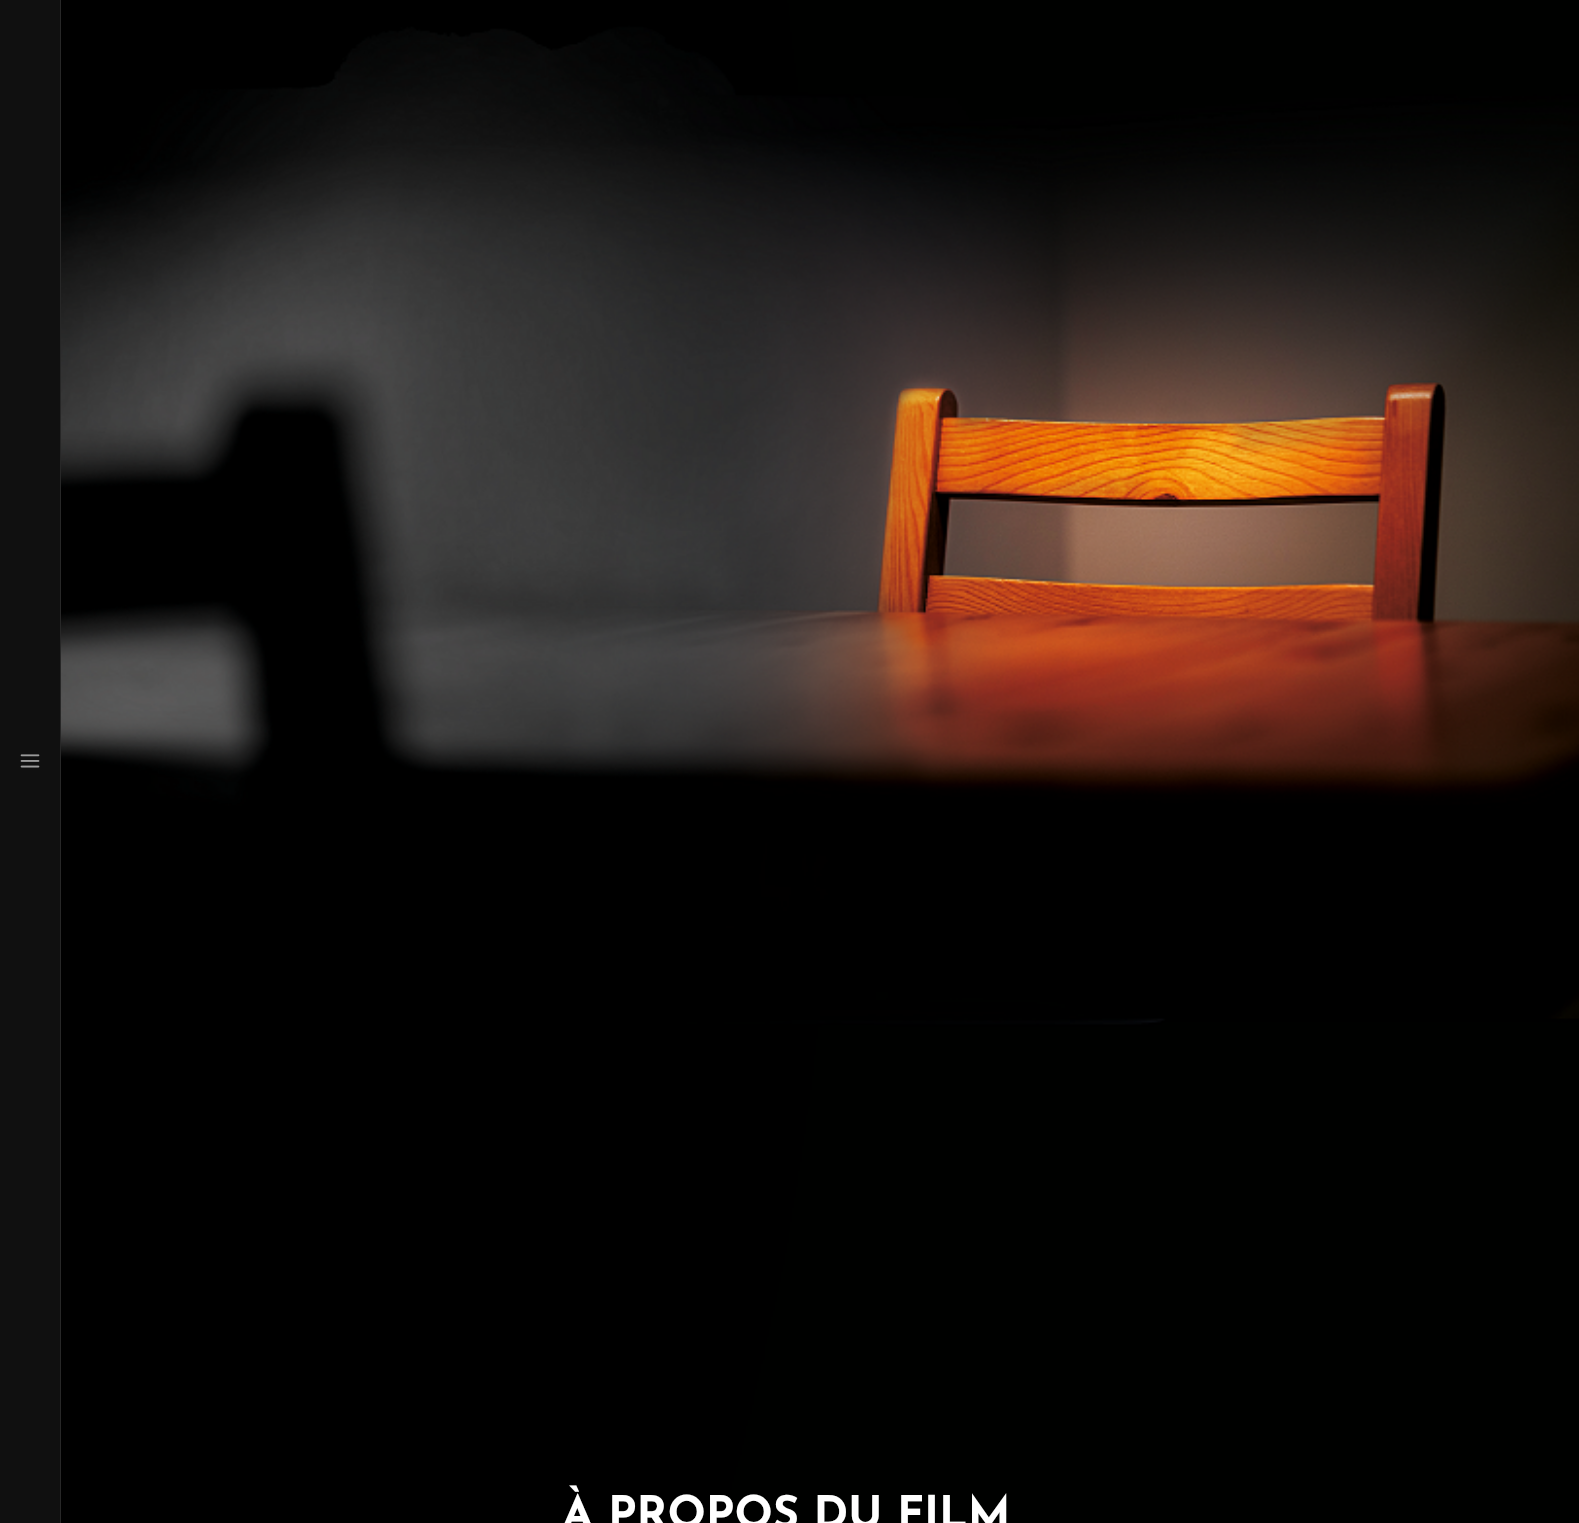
void draw(SkCanvas* canvas) {
    SkPaint paint;
    paint.setAntiAlias(true);
    canvas->clear(0xFFFFFFFF);
    paint.setColor(0xFF101010);
    canvas->drawRect(SkRect::MakeXYWH(0, 0, 60, 1523), paint);
    paint.setColor(0xFF272727);
    canvas->drawRect(SkRect::MakeXYWH(60, 0, 1, 1523), paint);
    canvas->drawImageRect(SkImages::DeferredFromEncodedData(SkData::MakeFromFileName("img1.png")), SkRect::MakeXYWH(20, 754, 20, 14), SkSamplingOptions());
    canvas->drawImageRect(SkImages::DeferredFromEncodedData(SkData::MakeFromFileName("img2.png")), SkRect::MakeXYWH(61, 0, 1518, 1523), SkSamplingOptions());
    SkFont font1(fontMgr->matchFamilyStyle("Josefin Sans", SkFontStyle::Bold()), 45);
    font1.setSubpixel(true);
    paint.setColor(0xFFFFFFFF);
    canvas->drawString("À PROPOS DU FILM", 562, 1528, font1, paint);
}
